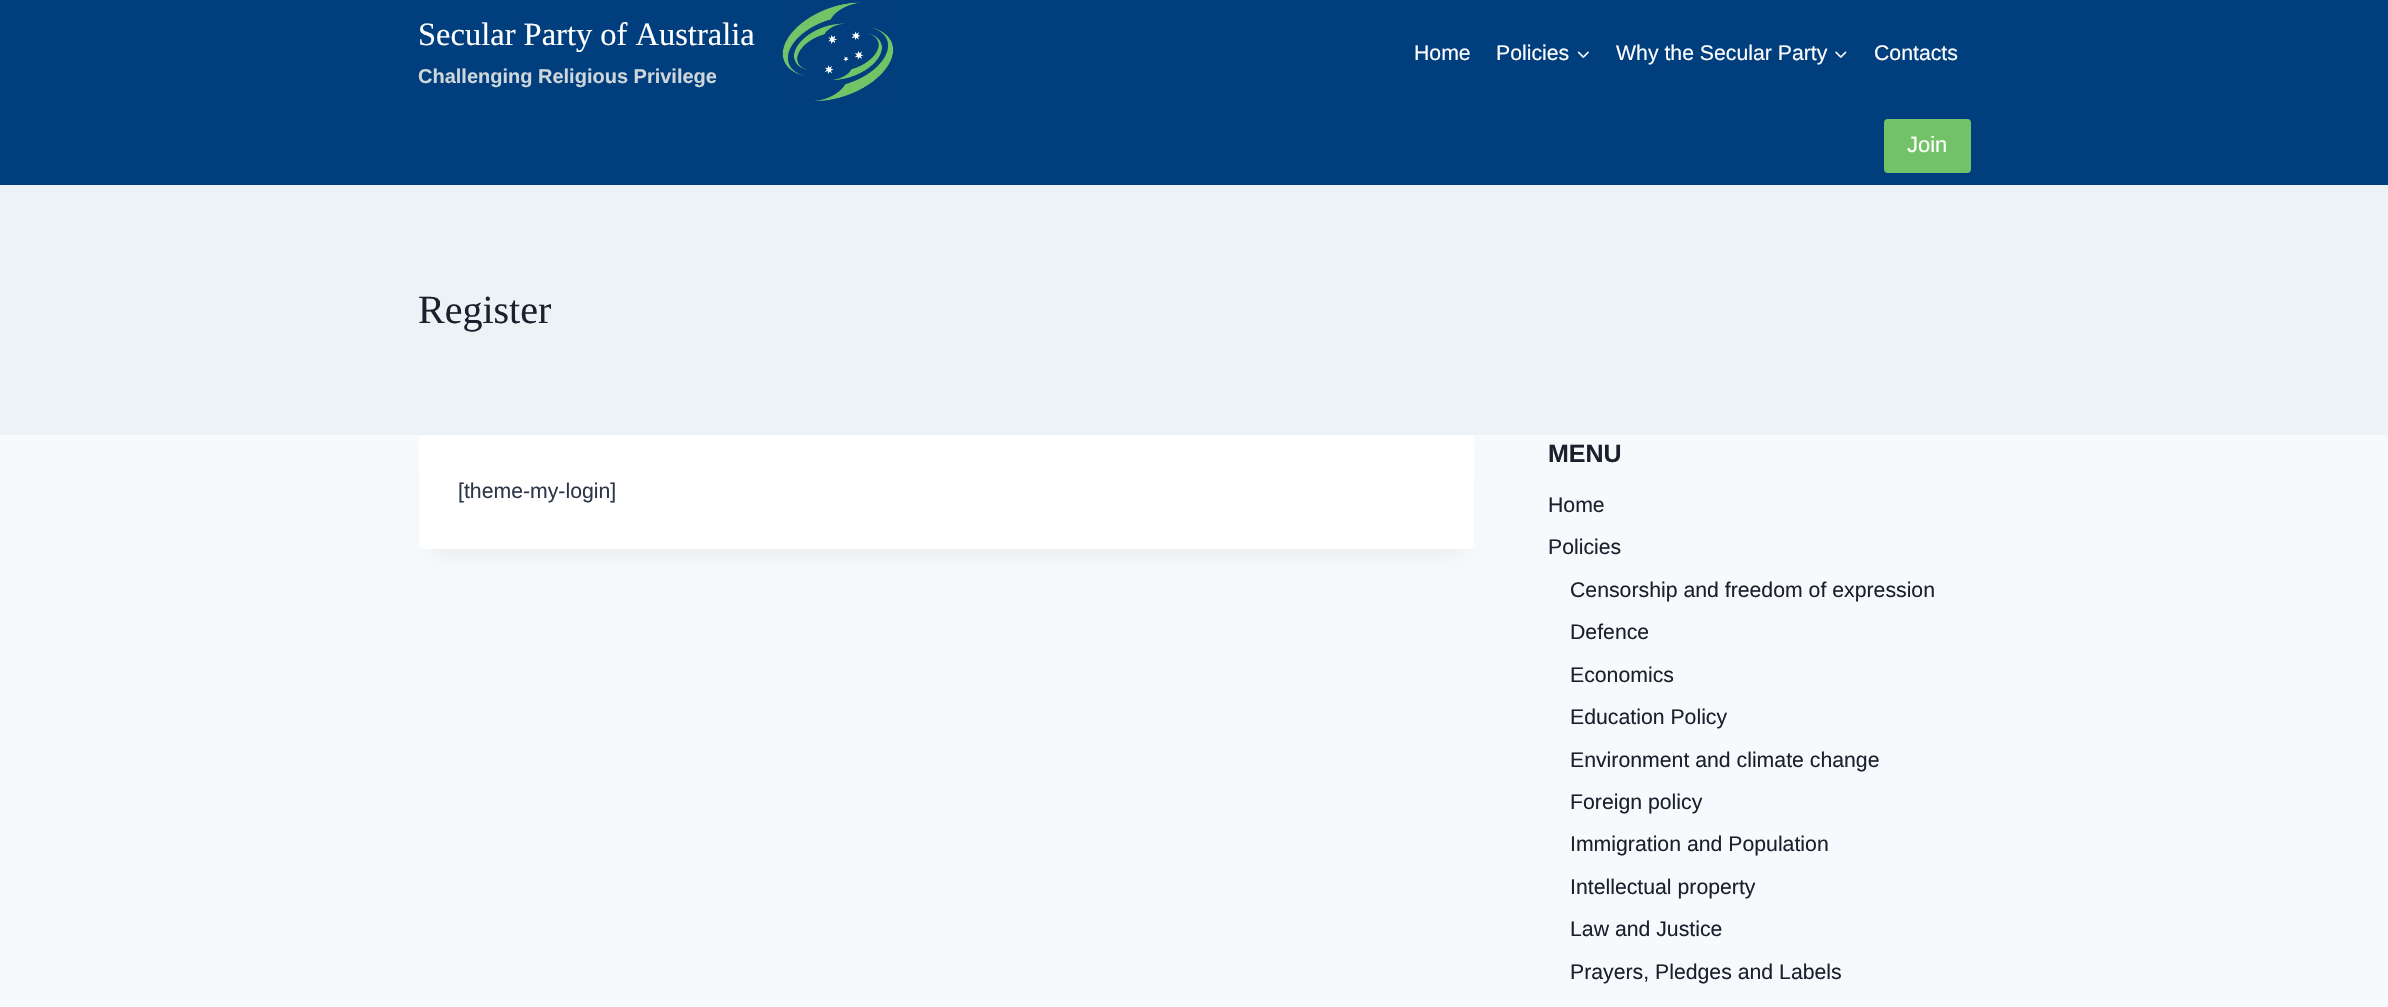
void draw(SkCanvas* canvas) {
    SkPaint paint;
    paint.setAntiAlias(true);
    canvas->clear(0xFFF7FAFC);
    paint.setColor(0xFF013E7D);
    canvas->drawRect(SkRect::MakeXYWH(0, 0, 2388, 185), paint);
    SkFont font1(fontMgr->matchFamilyStyle("Liberation Serif", SkFontStyle::Normal()), 32.5f);
    font1.setSubpixel(true);
    paint.setColor(0xFFFFFFFF);
    canvas->drawString("Secular Party of Australia", 418, 45, font1, paint);
    SkFont font2(fontMgr->matchFamilyStyle("Liberation Sans", SkFontStyle::Bold()), 20);
    font2.setSubpixel(true);
    paint.setColor(0xFFCDD6DB);
    canvas->drawString("Challenging Religious Privilege", 418, 83, font2, paint);
    canvas->drawImageRect(SkImages::DeferredFromEncodedData(SkData::MakeFromFileName("img1.png")), SkRect::MakeXYWH(782, 2, 112, 100), SkSamplingOptions());
    SkFont font3(fontMgr->matchFamilyStyle("Liberation Sans", SkFontStyle::Normal()), 21.25f);
    font3.setSubpixel(true);
    paint.setColor(0xFFFFFFFF);
    canvas->drawString("Home", 1414, 60, font3, paint);
    canvas->drawString("Policies", 1496, 60, font3, paint);
    canvas->drawImageRect(SkImages::DeferredFromEncodedData(SkData::MakeFromFileName("img2.png")), SkRect::MakeXYWH(1577, 51, 12, 7), SkSamplingOptions());
    canvas->drawString("Why the Secular Party", 1616, 60, font3, paint);
    canvas->drawImageRect(SkImages::DeferredFromEncodedData(SkData::MakeFromFileName("img3.png")), SkRect::MakeXYWH(1835, 51, 12, 7), SkSamplingOptions());
    canvas->drawString("Contacts", 1874, 60, font3, paint);
    paint.setColor(0xFF72C367);
    canvas->drawRoundRect(SkRect::MakeXYWH(1884, 119, 87, 54), 4, 4, paint);
    SkFont font4(fontMgr->matchFamilyStyle("Liberation Sans", SkFontStyle::Normal()), 22);
    font4.setSubpixel(true);
    paint.setColor(0xFFFFFFFF);
    canvas->drawString("Join", 1907, 152, font4, paint);
    paint.setColor(0xFFEDF2F7);
    canvas->drawRect(SkRect::MakeXYWH(0, 185, 2388, 250), paint);
    SkFont font5(fontMgr->matchFamilyStyle("Liberation Serif", SkFontStyle::Normal()), 40);
    font5.setSubpixel(true);
    paint.setColor(0xFF1A202C);
    canvas->drawString("Register", 418, 323, font5, paint);
    paint.setColor(0x0D000000);
    paint.setMaskFilter(SkMaskFilter::MakeBlur(kNormal_SkBlurStyle, 9.5f));
    canvas->drawRect(SkRect::MakeXYWH(431, 466, 1030, 89), paint);
    paint.setMaskFilter(nullptr);
    paint.setColor(0xFFFFFFFF);
    canvas->drawRoundRect(SkRect::MakeXYWH(419, 435, 1055, 114), 5, 5, paint);
    paint.setColor(0xFF2D3748);
    canvas->drawString("[theme-my-login]", 458, 498, font3, paint);
    SkFont font6(fontMgr->matchFamilyStyle("Liberation Sans", SkFontStyle::Bold()), 25);
    font6.setSubpixel(true);
    paint.setColor(0xFF1A202C);
    canvas->drawString("MENU", 1548, 462, font6, paint);
    canvas->drawString("Home", 1548, 512, font3, paint);
    canvas->drawString("Policies", 1548, 554, font3, paint);
    canvas->drawString("Censorship and freedom of expression", 1570, 597, font3, paint);
    canvas->drawString("Defence", 1570, 639, font3, paint);
    canvas->drawString("Economics", 1570, 682, font3, paint);
    canvas->drawString("Education Policy", 1570, 724, font3, paint);
    canvas->drawString("Environment and climate change", 1570, 767, font3, paint);
    canvas->drawString("Foreign policy", 1570, 809, font3, paint);
    canvas->drawString("Immigration and Population", 1570, 851, font3, paint);
    canvas->drawString("Intellectual property", 1570, 894, font3, paint);
    canvas->drawString("Law and Justice", 1570, 936, font3, paint);
    canvas->drawString("Prayers, Pledges and Labels", 1570, 979, font3, paint);
}
